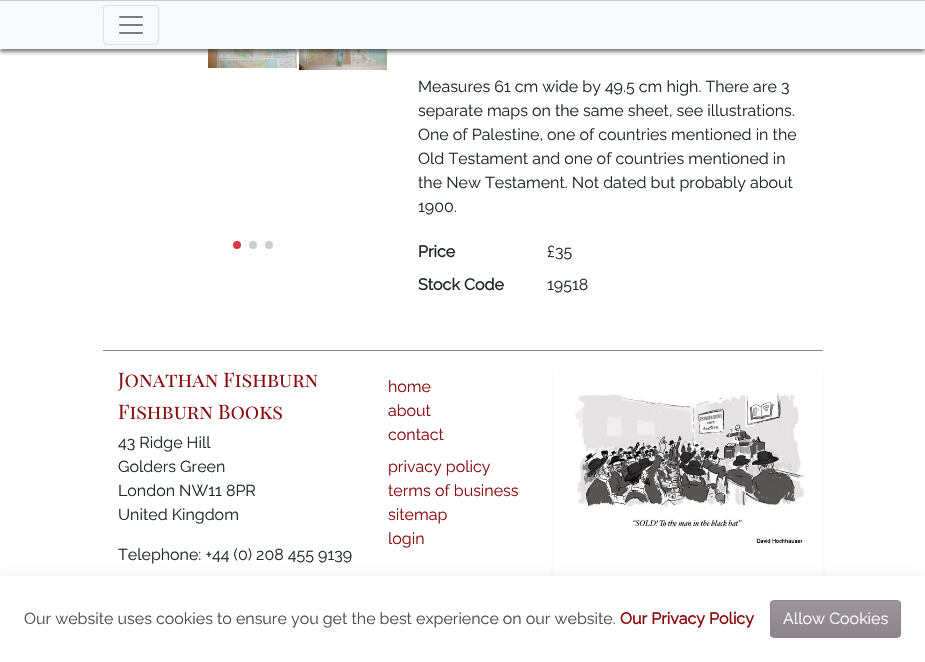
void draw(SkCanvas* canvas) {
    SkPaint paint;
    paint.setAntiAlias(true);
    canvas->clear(0xFFFFFFFF);
    canvas->drawImageRect(SkImages::DeferredFromEncodedData(SkData::MakeFromFileName("img2.png")), SkRect::MakeXYWH(208, 49, 89, 19), SkSamplingOptions());
    canvas->drawImageRect(SkImages::DeferredFromEncodedData(SkData::MakeFromFileName("img3.png")), SkRect::MakeXYWH(299, 49, 88, 21), SkSamplingOptions());
    paint.setColor(0x80000000);
    paint.setMaskFilter(SkMaskFilter::MakeBlur(kNormal_SkBlurStyle, 2));
    canvas->drawRect(SkRect::MakeXYWH(0, 3, 925, 49), paint);
    paint.setMaskFilter(nullptr);
    paint.setColor(0xFFF8F9FA);
    canvas->drawRect(SkRect::MakeXYWH(0, 1, 925, 48), paint);
    paint.setColor(0xFFC9CACB);
    canvas->drawRect(SkRect::MakeXYWH(0, 0, 925, 1), paint);
    paint.setStyle(SkPaint::kStroke_Style);
    paint.setStrokeWidth(1);
    paint.setColor(0xFFDFE0E1);
    canvas->drawRoundRect(SkRect::MakeXYWH(103.5f, 5.5f, 55, 39), 3.5f, 3.5f, paint);
    canvas->drawImageRect(SkImages::DeferredFromEncodedData(SkData::MakeFromFileName("img1.png")), SkRect::MakeXYWH(119, 16, 24, 18), SkSamplingOptions());
    paint.setStyle(SkPaint::kFill_Style);
    paint.setColor(0xFFDC3545);
    canvas->drawCircle(237, 245, 4, paint);
    paint.setColor(0xFFCCCCCC);
    canvas->drawCircle(253, 245, 4, paint);
    canvas->drawCircle(269, 245, 4, paint);
    SkFont font1(fontMgr->matchFamilyStyle("Raleway", SkFontStyle(100, SkFontStyle::kNormal_Width, SkFontStyle::kUpright_Slant)), 16);
    font1.setSubpixel(true);
    paint.setColor(0xFF212529);
    canvas->drawString("Measures 61 cm wide by 49.5 cm high. There are 3", 418, 92, font1, paint);
    canvas->drawString("separate maps on the same sheet, see illustrations.", 418, 116, font1, paint);
    canvas->drawString("One of Palestine, one of countries mentioned in the", 418, 140, font1, paint);
    canvas->drawString("Old Testament and one of countries mentioned in", 418, 164, font1, paint);
    canvas->drawString("the New Testament. Not dated but probably about", 418, 188, font1, paint);
    canvas->drawString("1900.", 418, 212, font1, paint);
    SkFont font2(fontMgr->matchFamilyStyle("Raleway", SkFontStyle::Bold()), 16);
    font2.setSubpixel(true);
    canvas->drawString("Price", 418, 257, font2, paint);
    canvas->drawString("£35", 547, 257, font1, paint);
    canvas->drawString("Stock Code", 418, 290, font2, paint);
    canvas->drawString("19518", 547, 290, font1, paint);
    paint.setColor(0xFF8B848A);
    canvas->drawRect(SkRect::MakeXYWH(103, 350, 720, 1), paint);
    SkFont font3(fontMgr->matchFamilyStyle("Playfair Display SC", SkFontStyle::Normal()), 20);
    font3.setSubpixel(true);
    paint.setColor(0xFF870C0E);
    canvas->drawString("Jonathan Fishburn", 118, 387, font3, paint);
    canvas->drawString("Fishburn Books", 118, 419, font3, paint);
    paint.setColor(0xFF212529);
    canvas->drawString("43 Ridge Hill", 118, 448, font1, paint);
    canvas->drawString("Golders Green", 118, 472, font1, paint);
    canvas->drawString("London NW11 8PR", 118, 496, font1, paint);
    canvas->drawString("United Kingdom", 118, 520, font1, paint);
    canvas->drawString("Telephone: +44 (0) 208 455 9139", 118, 560, font1, paint);
    paint.setColor(0xFF870C0E);
    canvas->drawString("home", 388, 392, font1, paint);
    canvas->drawString("about", 388, 416, font1, paint);
    canvas->drawString("contact", 388, 440, font1, paint);
    canvas->drawString("privacy policy", 388, 472, font1, paint);
    canvas->drawString("terms of business", 388, 496, font1, paint);
    canvas->drawString("sitemap", 388, 520, font1, paint);
    canvas->drawString("login", 388, 544, font1, paint);
    paint.setColor(0x1A000000);
    paint.setMaskFilter(SkMaskFilter::MakeBlur(kNormal_SkBlurStyle, 1));
    canvas->drawRoundRect(SkRect::MakeXYWH(553, 369, 270, 264), 5, 5, paint);
    paint.setMaskFilter(nullptr);
    paint.setColor(0xFFFFFFFF);
    canvas->drawRoundRect(SkRect::MakeXYWH(553, 367, 270, 264), 5, 5, paint);
    canvas->drawImageRect(SkImages::DeferredFromEncodedData(SkData::MakeFromFileName("img4.png")), SkRect::MakeXYWH(575, 393, 229, 151), SkSamplingOptions());
    paint.setColor(0x260F1011);
    paint.setMaskFilter(SkMaskFilter::MakeBlur(kNormal_SkBlurStyle, 8));
    canvas->drawRect(SkRect::MakeXYWH(0, 580, 925, 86), paint);
    paint.setMaskFilter(nullptr);
    paint.setColor(0xFFFFFFFF);
    canvas->drawRect(SkRect::MakeXYWH(0, 576, 925, 86), paint);
    paint.setColor(0xFF4A4A4A);
    canvas->drawString("Our website uses cookies to ensure you get the best experience on our website.", 24, 624, font1, paint);
    paint.setColor(0xFF870C0E);
    canvas->drawString("Our Privacy Policy", 620, 624, font2, paint);
    canvas->save();
    canvas->clipPath(SkPathBuilder().moveTo(774, 600).lineTo(897, 600).cubicTo(899, 600, 901, 602, 901, 604).lineTo(901, 634).cubicTo(901, 636, 899, 638, 897, 638).lineTo(774, 638).cubicTo(772, 638, 770, 636, 770, 634).lineTo(770, 604).cubicTo(770, 602, 772, 600, 774, 600).close().detach(), true);
    {
        const SkColor colors[] = {0xFF9C969C, 0xFF8B848A};
        const float stops[] = {0, 1};
        const SkPoint ends[] = {{836, 601}, {836, 637}};
        paint.setShader(SkGradientShader::MakeLinear(ends, colors, stops, 2, SkTileMode::kClamp));
        paint.setAlpha(255);
    }
    canvas->drawRect(SkRect::MakeXYWH(770, 601, 131, 36), paint);
    canvas->restore();
    paint.setStyle(SkPaint::kStroke_Style);
    paint.setShader(nullptr);
    paint.setColor(0xFF8B848A);
    canvas->drawRoundRect(SkRect::MakeXYWH(770.5f, 600.5f, 130, 37), 3.5f, 3.5f, paint);
    paint.setStyle(SkPaint::kFill_Style);
    paint.setColor(0xFFFFFFFF);
    canvas->drawString("Allow Cookies", 783, 624, font1, paint);
}
